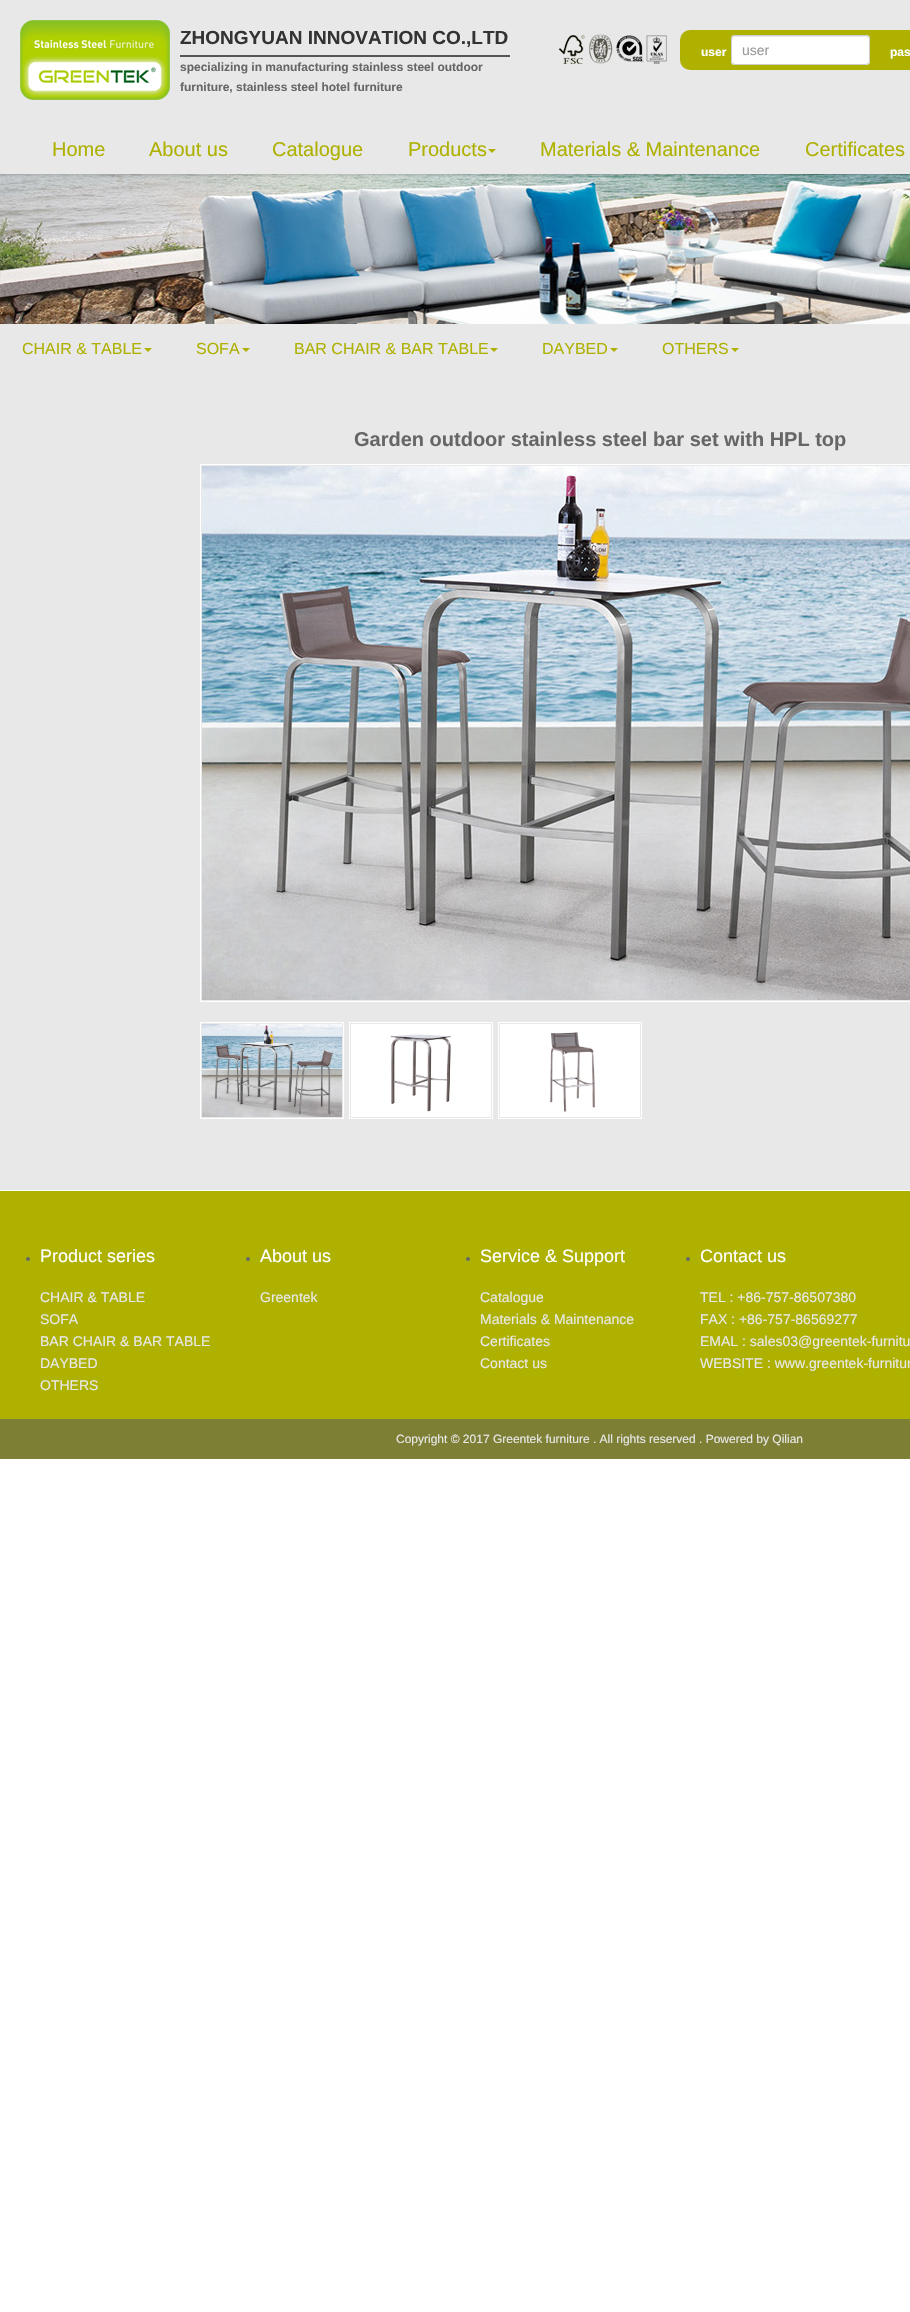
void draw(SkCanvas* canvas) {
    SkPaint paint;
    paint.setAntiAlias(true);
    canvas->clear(0xFFFFFFFF);
    paint.setColor(0xFFE8E8E8);
    canvas->drawRect(SkRect::MakeXYWH(0, 0, 910, 1190), paint);
    canvas->drawImageRect(SkImages::DeferredFromEncodedData(SkData::MakeFromFileName("img1.png")), SkRect::MakeXYWH(20, 20, 150, 80), SkSamplingOptions());
    paint.setColor(0xFF555555);
    canvas->drawRect(SkRect::MakeXYWH(180, 55, 330, 2), paint);
    SkFont font1(fontMgr->matchFamilyStyle("Liberation Sans", SkFontStyle::Bold()), 19);
    font1.setSubpixel(true);
    paint.setColor(0xFF333333);
    canvas->drawString("ZHONGYUAN INNOVATION CO.,LTD", 180, 44, font1, paint);
    SkFont font2(fontMgr->matchFamilyStyle("Liberation Sans", SkFontStyle::Bold()), 12);
    font2.setSubpixel(true);
    paint.setColor(0xFF666666);
    canvas->drawString("specializing in manufacturing stainless steel outdoor", 180, 71, font2, paint);
    canvas->drawString("furniture, stainless steel hotel furniture", 180, 91, font2, paint);
    canvas->drawImageRect(SkImages::DeferredFromEncodedData(SkData::MakeFromFileName("img2.png")), SkRect::MakeXYWH(559, 34, 108, 30), SkSamplingOptions());
    paint.setColor(0xFFAEB100);
    canvas->drawRoundRect(SkRect::MakeXYWH(680, 30, 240, 40), 10, 10, paint);
    paint.setColor(0xFFFFFFFF);
    canvas->drawString("user", 701, 56, font2, paint);
    canvas->drawRoundRect(SkRect::MakeXYWH(731, 35, 139, 30), 4, 4, paint);
    paint.setColor(0xFFECECEC);
    canvas->drawPath(SkPathBuilder().moveTo(735, 37).lineTo(866, 37).cubicTo(868, 37, 869, 38, 869, 40).cubicTo(869, 38, 869, 36, 867, 36).lineTo(734, 36).cubicTo(732, 36, 732, 38, 732, 40).cubicTo(732, 38, 733, 37, 735, 37).close().detach(), paint);
    paint.setStyle(SkPaint::kStroke_Style);
    paint.setStrokeWidth(1);
    paint.setColor(0xFFCCCCCC);
    canvas->drawRoundRect(SkRect::MakeXYWH(731.5f, 35.5f, 138, 29), 3.5f, 3.5f, paint);
    SkFont font3(fontMgr->matchFamilyStyle("Liberation Sans", SkFontStyle::Normal()), 14);
    font3.setSubpixel(true);
    paint.setStyle(SkPaint::kFill_Style);
    paint.setColor(0xFF999999);
    canvas->drawString("user", 742, 55, font3, paint);
    paint.setColor(0xFFFFFFFF);
    canvas->drawString("pas", 890, 56, font2, paint);
    SkFont font4(fontMgr->matchFamilyStyle("Liberation Sans", SkFontStyle::Normal()), 20);
    font4.setSubpixel(true);
    paint.setColor(0xFFAEB100);
    canvas->drawString("Home", 52, 156, font4, paint);
    canvas->drawString("About us", 149, 156, font4, paint);
    canvas->drawString("Catalogue", 272, 156, font4, paint);
    canvas->drawString("Products", 408, 156, font4, paint);
    canvas->drawPath(SkPathBuilder().moveTo(488, 149).lineTo(496, 149).lineTo(492, 153).close().detach(), paint);
    canvas->drawString("Materials & Maintenance", 540, 156, font4, paint);
    canvas->drawString("Certificates", 805, 156, font4, paint);
    canvas->drawImageRect(SkImages::DeferredFromEncodedData(SkData::MakeFromFileName("img3.png")), SkRect::MakeXYWH(0, 174, 910, 150), SkSamplingOptions());
    SkFont font5(fontMgr->matchFamilyStyle("Liberation Sans", SkFontStyle::Normal()), 16);
    font5.setSubpixel(true);
    canvas->drawString("CHAIR & TABLE", 22, 354, font5, paint);
    canvas->drawPath(SkPathBuilder().moveTo(144, 348).lineTo(152, 348).lineTo(148, 352).close().detach(), paint);
    canvas->drawString("SOFA", 196, 354, font5, paint);
    canvas->drawPath(SkPathBuilder().moveTo(242, 348).lineTo(250, 348).lineTo(246, 352).close().detach(), paint);
    canvas->drawString("BAR CHAIR & BAR TABLE", 294, 354, font5, paint);
    canvas->drawPath(SkPathBuilder().moveTo(490, 348).lineTo(498, 348).lineTo(494, 352).close().detach(), paint);
    canvas->drawString("DAYBED", 542, 354, font5, paint);
    canvas->drawPath(SkPathBuilder().moveTo(610, 348).lineTo(618, 348).lineTo(614, 352).close().detach(), paint);
    canvas->drawString("OTHERS", 662, 354, font5, paint);
    canvas->drawPath(SkPathBuilder().moveTo(731, 348).lineTo(739, 348).lineTo(735, 352).close().detach(), paint);
    SkFont font6(fontMgr->matchFamilyStyle("Liberation Sans", SkFontStyle::Bold()), 20);
    font6.setSubpixel(true);
    paint.setColor(0xFF666666);
    canvas->drawString("Garden outdoor stainless steel bar set with HPL top", 354, 446, font6, paint);
    paint.setStyle(SkPaint::kStroke_Style);
    paint.setColor(0xFFFFFFFF);
    canvas->drawRect(SkRect::MakeXYWH(200.5f, 464.5f, 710, 537), paint);
    canvas->drawImageRect(SkImages::DeferredFromEncodedData(SkData::MakeFromFileName("img4.png")), SkRect::MakeXYWH(202, 466, 708, 534), SkSamplingOptions());
    canvas->drawRect(SkRect::MakeXYWH(200.5f, 1022.5f, 143, 96), paint);
    canvas->drawImageRect(SkImages::DeferredFromEncodedData(SkData::MakeFromFileName("img5.png")), SkRect::MakeXYWH(202, 1024, 140, 93), SkSamplingOptions());
    canvas->drawRect(SkRect::MakeXYWH(349.5f, 1022.5f, 143, 96), paint);
    canvas->drawImageRect(SkImages::DeferredFromEncodedData(SkData::MakeFromFileName("img6.png")), SkRect::MakeXYWH(351, 1024, 140, 93), SkSamplingOptions());
    canvas->drawRect(SkRect::MakeXYWH(498.5f, 1022.5f, 143, 96), paint);
    canvas->drawImageRect(SkImages::DeferredFromEncodedData(SkData::MakeFromFileName("img7.png")), SkRect::MakeXYWH(500, 1024, 140, 93), SkSamplingOptions());
    paint.setStyle(SkPaint::kFill_Style);
    paint.setColor(0xFFAEB100);
    canvas->drawRect(SkRect::MakeXYWH(0, 1191, 910, 228), paint);
    paint.setColor(0xFF666666);
    canvas->drawCircle(28, 1259, 2, paint);
    SkFont font7(fontMgr->matchFamilyStyle("Liberation Sans", SkFontStyle::Normal()), 18);
    font7.setSubpixel(true);
    paint.setColor(0xFFFFFFFF);
    canvas->drawString("Product series", 40, 1262, font7, paint);
    paint.setColor(0xFFE8E8E8);
    canvas->drawString("CHAIR & TABLE", 40, 1302, font3, paint);
    canvas->drawString("SOFA", 40, 1324, font3, paint);
    canvas->drawString("BAR CHAIR & BAR TABLE", 40, 1346, font3, paint);
    canvas->drawString("DAYBED", 40, 1368, font3, paint);
    canvas->drawString("OTHERS", 40, 1390, font3, paint);
    paint.setColor(0xFF666666);
    canvas->drawCircle(248, 1259, 2, paint);
    paint.setColor(0xFFFFFFFF);
    canvas->drawString("About us", 260, 1262, font7, paint);
    paint.setColor(0xFFE8E8E8);
    canvas->drawString("Greentek", 260, 1302, font3, paint);
    paint.setColor(0xFF666666);
    canvas->drawCircle(468, 1259, 2, paint);
    paint.setColor(0xFFFFFFFF);
    canvas->drawString("Service & Support", 480, 1262, font7, paint);
    paint.setColor(0xFFE8E8E8);
    canvas->drawString("Catalogue", 480, 1302, font3, paint);
    canvas->drawString("Materials & Maintenance", 480, 1324, font3, paint);
    canvas->drawString("Certificates", 480, 1346, font3, paint);
    canvas->drawString("Contact us", 480, 1368, font3, paint);
    paint.setColor(0xFF666666);
    canvas->drawCircle(688, 1259, 2, paint);
    paint.setColor(0xFFFFFFFF);
    canvas->drawString("Contact us", 700, 1262, font7, paint);
    paint.setColor(0xFFE8E8E8);
    canvas->drawString("TEL : +86-757-86507380", 700, 1302, font3, paint);
    canvas->drawString("FAX : +86-757-86569277", 700, 1324, font3, paint);
    canvas->drawString("EMAL : sales03@greentek-furnitu", 700, 1346, font3, paint);
    canvas->drawString("WEBSITE : www.greentek-furnitur", 700, 1368, font3, paint);
    paint.setColor(0xFF7D7F34);
    canvas->drawRect(SkRect::MakeXYWH(0, 1419, 910, 40), paint);
    SkFont font8(fontMgr->matchFamilyStyle("Liberation Sans", SkFontStyle::Normal()), 12);
    font8.setSubpixel(true);
    paint.setColor(0xFFE8E8E8);
    canvas->drawString("Copyright © 2017 Greentek furniture . All rights reserved . Powered by Qilian", 396, 1443, font8, paint);
}
